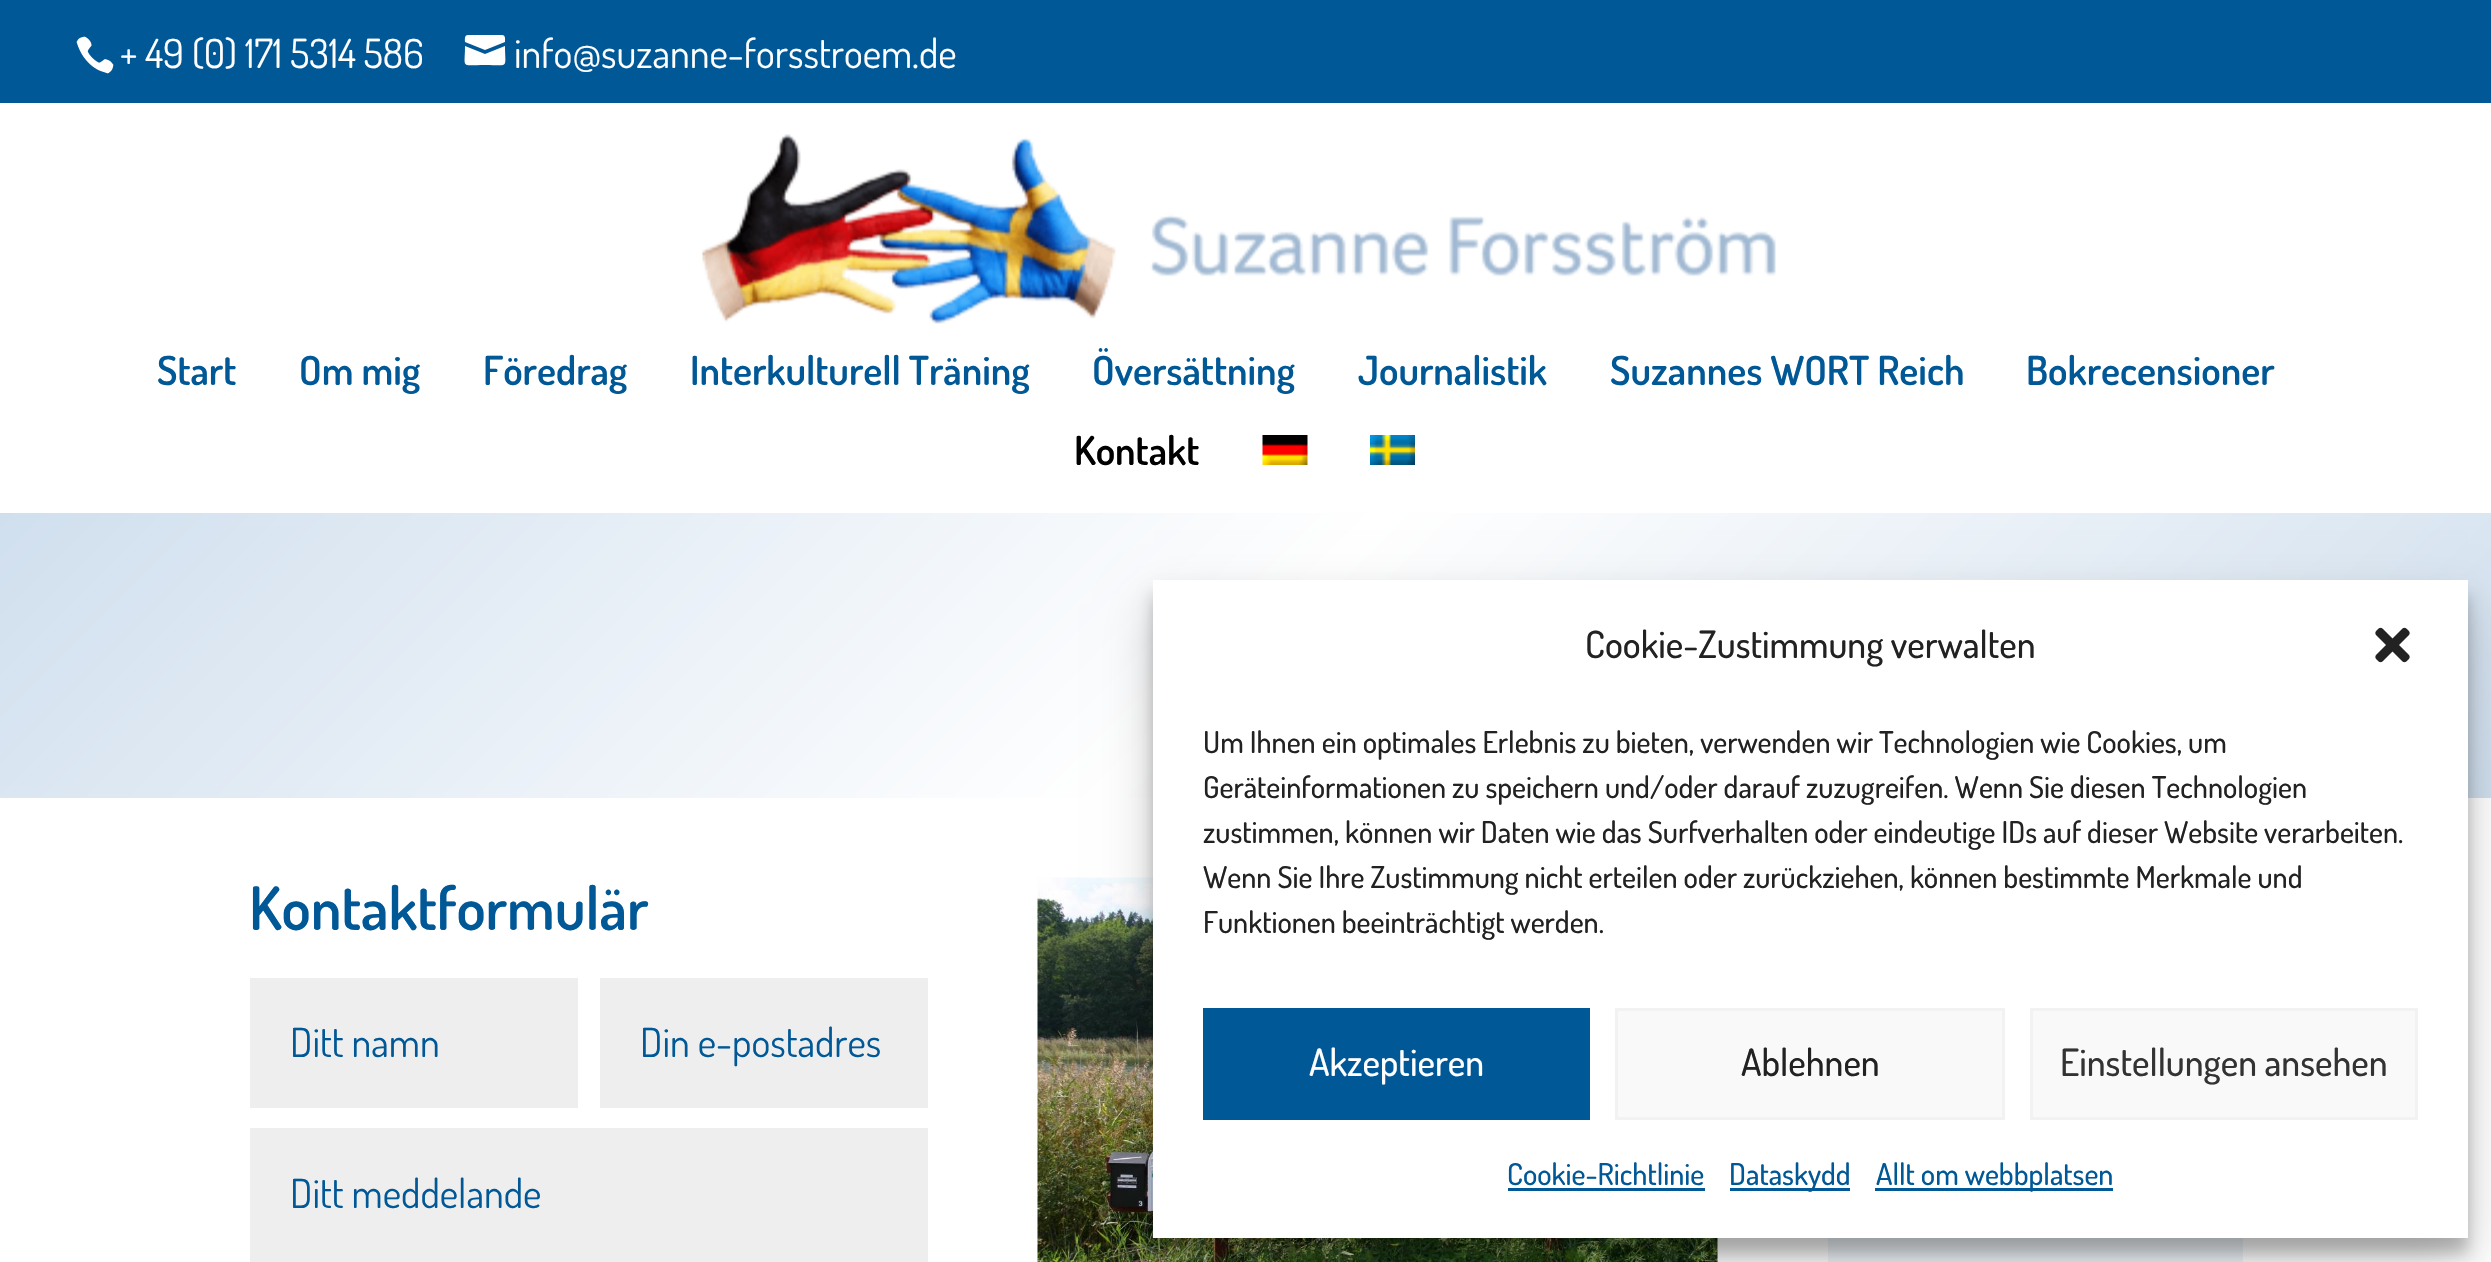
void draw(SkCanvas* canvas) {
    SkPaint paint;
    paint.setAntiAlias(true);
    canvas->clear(0xFFFFFFFF);
    paint.setColor(0xFF015896);
    canvas->drawRect(SkRect::MakeXYWH(0, 0, 2491, 103), paint);
    canvas->drawImageRect(SkImages::DeferredFromEncodedData(SkData::MakeFromFileName("img1.png")), SkRect::MakeXYWH(76, 36, 38, 38), SkSamplingOptions());
    SkFont font1(fontMgr->matchFamilyStyle("Dosis", SkFontStyle::Normal()), 40);
    font1.setSubpixel(true);
    paint.setColor(0xFFFFFFFF);
    canvas->drawString("+ 49 (0) 171 5314 586", 120, 68, font1, paint);
    canvas->drawString("info@suzanne-forsstroem.de", 514, 68, font1, paint);
    canvas->drawPath(SkPathBuilder().moveTo(502, 35).lineTo(468, 35).cubicTo(464, 35, 465, 40, 465, 42).lineTo(485, 50).lineTo(505, 42).cubicTo(505, 40, 506, 35, 502, 35).close().moveTo(465, 46).cubicTo(465, 69, 460, 65, 485, 65).cubicTo(510, 65, 505, 69, 505, 46).lineTo(485, 54).close().detach(), paint);
    canvas->drawImageRect(SkImages::DeferredFromEncodedData(SkData::MakeFromFileName("img2.png")), SkRect::MakeXYWH(702, 134, 1074, 190), SkSamplingOptions());
    SkFont font2(fontMgr->matchFamilyStyle("Dosis", SkFontStyle(600, SkFontStyle::kNormal_Width, SkFontStyle::kUpright_Slant)), 40);
    font2.setSubpixel(true);
    paint.setColor(0xFF015896);
    canvas->drawString("Start", 157, 385, font2, paint);
    canvas->drawString("Om mig", 299, 385, font2, paint);
    canvas->drawString("Föredrag", 483, 385, font2, paint);
    canvas->drawString("Interkulturell Träning", 690, 385, font2, paint);
    canvas->drawString("Översättning", 1092, 385, font2, paint);
    canvas->drawString("Journalistik", 1358, 385, font2, paint);
    canvas->drawString("Suzannes WORT Reich", 1610, 385, font2, paint);
    canvas->drawString("Bokrecensioner", 2026, 385, font2, paint);
    paint.setColor(0xFF000000);
    canvas->drawString("Kontakt", 1074, 465, font2, paint);
    canvas->drawImageRect(SkImages::DeferredFromEncodedData(SkData::MakeFromFileName("img3.png")), SkRect::MakeXYWH(1262, 435, 46, 30), SkSamplingOptions());
    canvas->drawImageRect(SkImages::DeferredFromEncodedData(SkData::MakeFromFileName("img4.png")), SkRect::MakeXYWH(1370, 435, 45, 30), SkSamplingOptions());
    {
        const SkColor colors[] = {0xFFD0DFEE, 0xFFFFFFFF, 0xFFD0DFEE};
        const float stops[] = {0, 0.5f, 1};
        const SkPoint ends[] = {{552, -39}, {1941, 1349}};
        paint.setShader(SkGradientShader::MakeLinear(ends, colors, stops, 3, SkTileMode::kClamp));
        paint.setAlpha(255);
    }
    canvas->drawRect(SkRect::MakeXYWH(0, 513, 2491, 285), paint);
    SkFont font3(fontMgr->matchFamilyStyle("Dosis", SkFontStyle(600, SkFontStyle::kNormal_Width, SkFontStyle::kUpright_Slant)), 60);
    font3.setSubpixel(true);
    paint.setShader(nullptr);
    paint.setColor(0xFF015896);
    canvas->drawString("Kontaktformulär", 249, 930, font3, paint);
    paint.setColor(0xFFEEEEEE);
    canvas->drawRect(SkRect::MakeXYWH(250, 978, 328, 130), paint);
    paint.setColor(0xFF015896);
    canvas->drawString("Ditt namn", 290, 1057, font1, paint);
    paint.setColor(0xFFEEEEEE);
    canvas->drawRect(SkRect::MakeXYWH(600, 978, 328, 130), paint);
    paint.setColor(0xFF015896);
    canvas->drawString("Din e-postadres", 640, 1057, font1, paint);
    paint.setColor(0xFFEEEEEE);
    canvas->drawRect(SkRect::MakeXYWH(250, 1128, 678, 134), paint);
    paint.setColor(0xFF015896);
    canvas->drawString("Ditt meddelande", 290, 1208, font1, paint);
    canvas->drawImageRect(SkImages::DeferredFromEncodedData(SkData::MakeFromFileName("img5.png")), SkRect::MakeXYWH(1037, 877, 681, 385), SkSamplingOptions());
    {
        const SkColor colors[] = {0xFFE7EFF7, 0xFFFFFFFF};
        const float stops[] = {0, 1};
        const SkPoint ends[] = {{2035, 880}, {2035, 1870}};
        paint.setShader(SkGradientShader::MakeLinear(ends, colors, stops, 2, SkTileMode::kClamp));
        paint.setAlpha(255);
    }
    canvas->drawRect(SkRect::MakeXYWH(1828, 1238, 415, 24), paint);
    paint.setShader(nullptr);
    paint.setColor(0x3B000000);
    paint.setMaskFilter(SkMaskFilter::MakeBlur(kNormal_SkBlurStyle, 7.5f));
    canvas->drawRect(SkRect::MakeXYWH(1153, 595, 1315, 658), paint);
    paint.setMaskFilter(nullptr);
    paint.setColor(0x30000000);
    paint.setMaskFilter(SkMaskFilter::MakeBlur(kNormal_SkBlurStyle, 25));
    canvas->drawRect(SkRect::MakeXYWH(1153, 605, 1315, 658), paint);
    paint.setMaskFilter(nullptr);
    paint.setColor(0xFFFFFFFF);
    canvas->drawRect(SkRect::MakeXYWH(1153, 580, 1315, 658), paint);
    SkFont font4(fontMgr->matchFamilyStyle("Dosis", SkFontStyle(500, SkFontStyle::kNormal_Width, SkFontStyle::kUpright_Slant)), 37.5f);
    font4.setSubpixel(true);
    paint.setColor(0xFF222222);
    canvas->drawString("Cookie-Zustimmung verwalten", 1585, 658, font4, paint);
    canvas->drawImageRect(SkImages::DeferredFromEncodedData(SkData::MakeFromFileName("img6.png")), SkRect::MakeXYWH(2375, 627, 35, 36), SkSamplingOptions());
    SkFont font5(fontMgr->matchFamilyStyle("Dosis", SkFontStyle(500, SkFontStyle::kNormal_Width, SkFontStyle::kUpright_Slant)), 30);
    font5.setSubpixel(true);
    canvas->drawString("Um Ihnen ein optimales Erlebnis zu bieten, verwenden wir Technologien wie Cookies, um", 1203, 753, font5, paint);
    canvas->drawString("Geräteinformationen zu speichern und/oder darauf zuzugreifen. Wenn Sie diesen Technologien", 1203, 798, font5, paint);
    canvas->drawString("zustimmen, können wir Daten wie das Surfverhalten oder eindeutige IDs auf dieser Website verarbeiten.", 1203, 843, font5, paint);
    canvas->drawString("Wenn Sie Ihre Zustimmung nicht erteilen oder zurückziehen, können bestimmte Merkmale und", 1203, 888, font5, paint);
    canvas->drawString("Funktionen beeinträchtigt werden.", 1203, 933, font5, paint);
    paint.setColor(0xFF015896);
    canvas->drawRect(SkRect::MakeXYWH(1203, 1008, 387, 112), paint);
    paint.setColor(0xFFFFFFFF);
    canvas->drawString("Akzeptieren", 1309, 1076, font4, paint);
    paint.setColor(0xFFF9F9F9);
    canvas->drawRect(SkRect::MakeXYWH(1616.5f, 1009.5f, 387, 109), paint);
    paint.setStyle(SkPaint::kStroke_Style);
    paint.setStrokeWidth(3);
    paint.setColor(0xFFF2F2F2);
    canvas->drawRect(SkRect::MakeXYWH(1616.5f, 1009.5f, 387, 109), paint);
    paint.setStyle(SkPaint::kFill_Style);
    paint.setColor(0xFF222222);
    canvas->drawString("Ablehnen", 1741, 1076, font4, paint);
    paint.setColor(0xFFF9F9F9);
    canvas->drawRect(SkRect::MakeXYWH(2031.5f, 1009.5f, 385, 109), paint);
    paint.setStyle(SkPaint::kStroke_Style);
    paint.setColor(0xFFF2F2F2);
    canvas->drawRect(SkRect::MakeXYWH(2031.5f, 1009.5f, 385, 109), paint);
    paint.setStyle(SkPaint::kFill_Style);
    paint.setColor(0xFF333333);
    canvas->drawString("Einstellungen ansehen", 2060, 1076, font4, paint);
    paint.setColor(0xFF015896);
    canvas->drawString("Cookie-Richtlinie", 1507, 1185, font5, paint);
    canvas->drawRect(SkRect::MakeXYWH(1508, 1188, 197, 3), paint);
    canvas->drawRect(SkRect::MakeXYWH(1730, 1188, 120, 3), paint);
    canvas->drawString("Dataskydd", 1729, 1185, font5, paint);
    canvas->drawRect(SkRect::MakeXYWH(1875, 1188, 238, 3), paint);
    canvas->drawString("Allt om webbplatsen", 1876, 1185, font5, paint);
}
